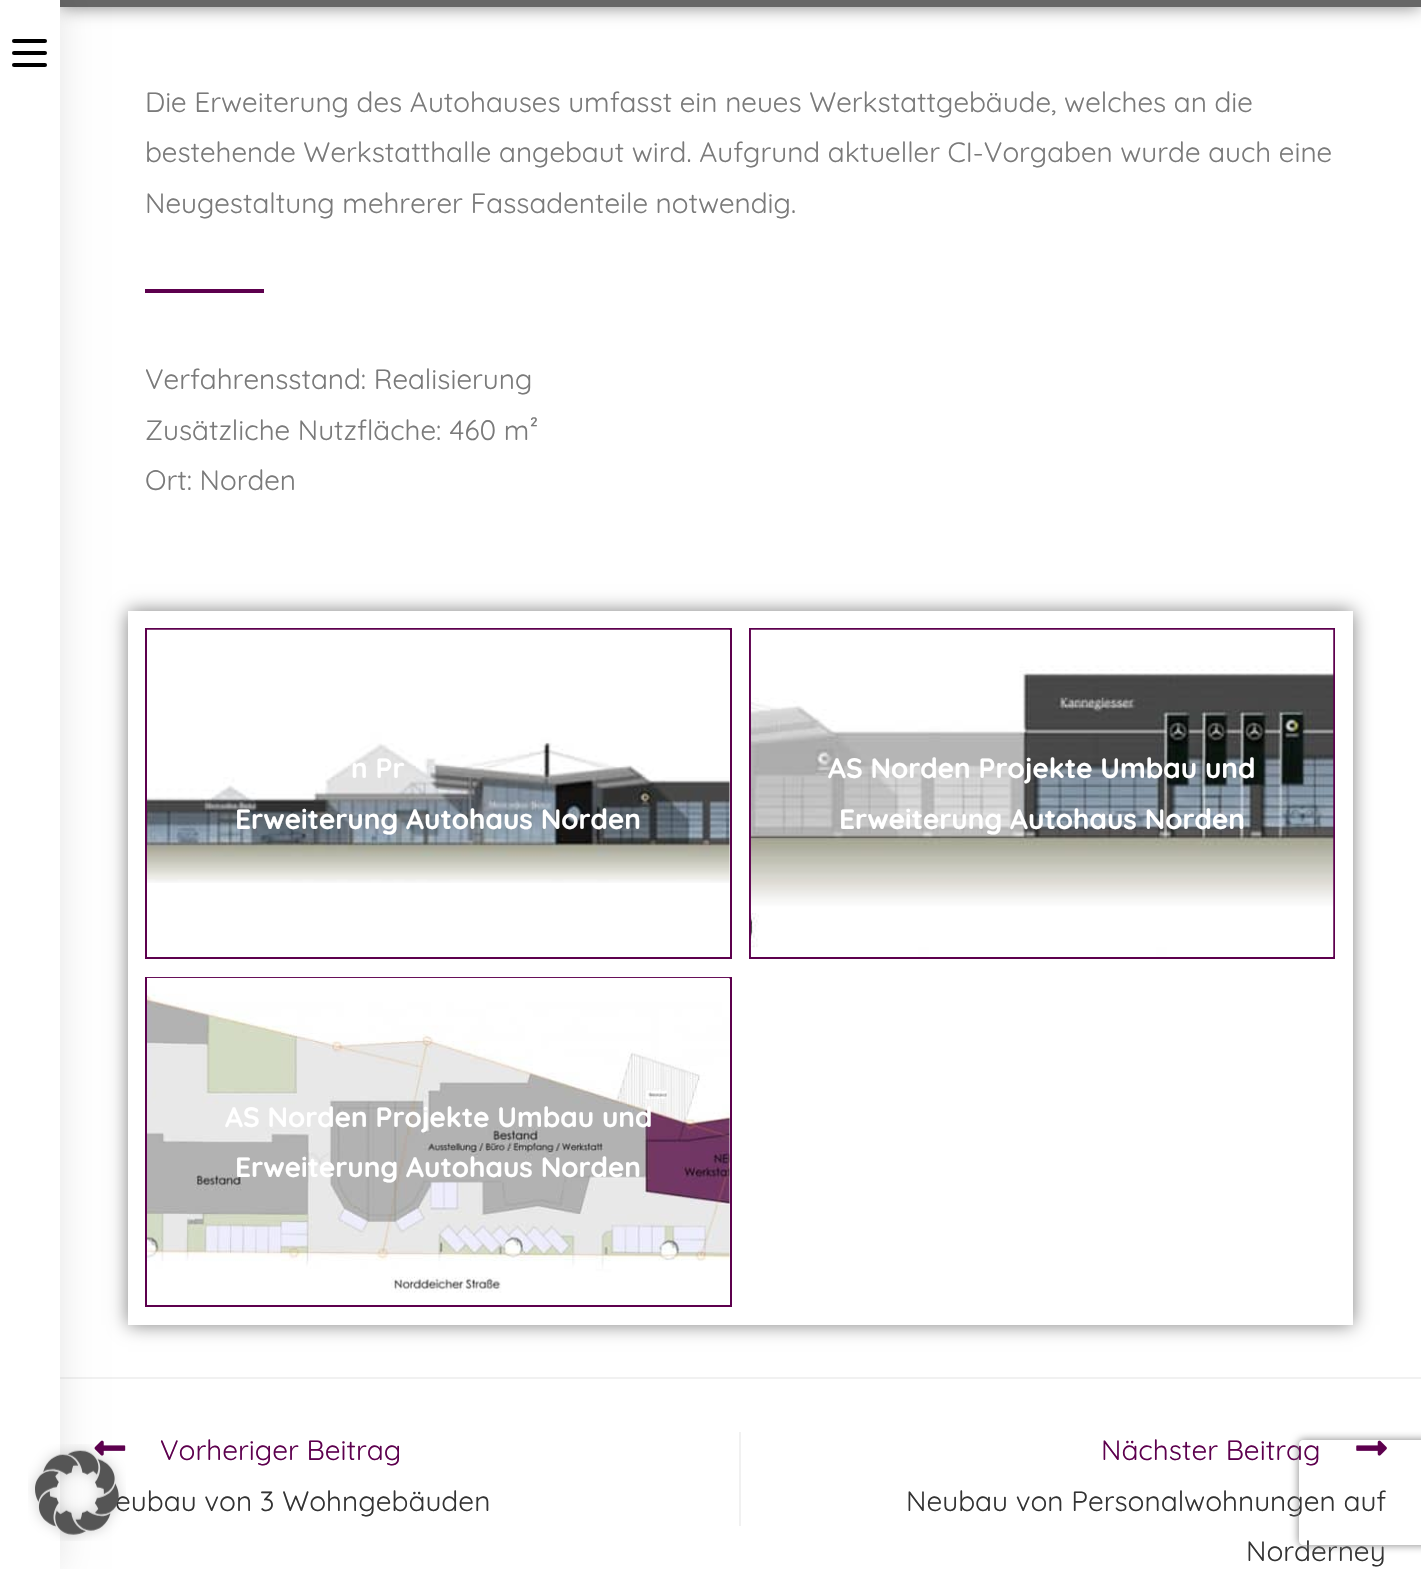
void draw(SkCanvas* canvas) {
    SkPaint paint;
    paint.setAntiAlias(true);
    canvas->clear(0xFFFFFFFF);
    paint.setColor(0x80000000);
    paint.setMaskFilter(SkMaskFilter::MakeBlur(kNormal_SkBlurStyle, 9));
    canvas->drawRect(SkRect::MakeXYWH(60, -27, 1361, 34), paint);
    paint.setMaskFilter(nullptr);
    paint.setColor(0xFF666666);
    canvas->drawRect(SkRect::MakeXYWH(60, 0, 1361, 7), paint);
    paint.setColor(0xFFF1F1F1);
    canvas->drawRect(SkRect::MakeXYWH(60, 1377, 1361, 2), paint);
    canvas->drawImageRect(SkImages::DeferredFromEncodedData(SkData::MakeFromFileName("img4.png")), SkRect::MakeXYWH(94, 1440, 32, 16), SkSamplingOptions());
    paint.setColor(0x1A000000);
    paint.setMaskFilter(SkMaskFilter::MakeBlur(kNormal_SkBlurStyle, 17.5f));
    canvas->drawRect(SkRect::MakeXYWH(-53, 0, 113, 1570), paint);
    paint.setMaskFilter(nullptr);
    paint.setColor(0xFFFFFFFF);
    canvas->drawRect(SkRect::MakeXYWH(0, 0, 60, 1569), paint);
    paint.setColor(0xFF000000);
    canvas->drawRoundRect(SkRect::MakeXYWH(12, 51, 35, 4), 2, 2, paint);
    canvas->drawRoundRect(SkRect::MakeXYWH(12, 39, 35, 4), 2, 2, paint);
    canvas->drawRoundRect(SkRect::MakeXYWH(12, 63, 35, 4), 2, 2, paint);
    SkFont font1(fontMgr->matchFamilyStyle("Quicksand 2", SkFontStyle(300, SkFontStyle::kNormal_Width, SkFontStyle::kUpright_Slant)), 28);
    font1.setSubpixel(true);
    paint.setColor(0xFF7A7A7A);
    canvas->drawString("Die Erweiterung des Autohauses umfasst ein neues Werkstattgebäude, welches an die", 145, 112, font1, paint);
    canvas->drawString("bestehende Werkstatthalle angebaut wird. Aufgrund aktueller CI-Vorgaben wurde auch eine", 145, 162, font1, paint);
    canvas->drawString("Neugestaltung mehrerer Fassadenteile notwendig.", 145, 213, font1, paint);
    paint.setColor(0xFF5D004E);
    canvas->drawRect(SkRect::MakeXYWH(145, 289, 119, 4), paint);
    paint.setColor(0xFF7A7A7A);
    canvas->drawString("Verfahrensstand: Realisierung", 145, 389, font1, paint);
    canvas->drawString("Zusätzliche Nutzfläche: 460 m²", 145, 440, font1, paint);
    canvas->drawString("Ort: Norden", 145, 490, font1, paint);
    canvas->save();
    canvas->clipPath(SkPathBuilder(SkPathFillType::kEvenOdd).moveTo(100, 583).lineTo(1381, 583).lineTo(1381, 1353).lineTo(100, 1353).close().moveTo(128, 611).lineTo(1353, 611).lineTo(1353, 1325).lineTo(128, 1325).close().detach(), true);
    paint.setColor(0x80000000);
    paint.setMaskFilter(SkMaskFilter::MakeBlur(kNormal_SkBlurStyle, 9));
    canvas->drawRect(SkRect::MakeXYWH(128, 611, 1225, 714), paint);
    paint.setMaskFilter(nullptr);
    canvas->restore();
    paint.setStyle(SkPaint::kStroke_Style);
    paint.setStrokeWidth(2);
    paint.setColor(0xFF5D004E);
    canvas->drawRect(SkRect::MakeXYWH(146, 629, 585, 329), paint);
    canvas->drawImageRect(SkImages::DeferredFromEncodedData(SkData::MakeFromFileName("img1.png")), SkRect::MakeXYWH(147, 629, 583, 254), SkSamplingOptions());
    SkFont font2(fontMgr->matchFamilyStyle("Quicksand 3", SkFontStyle(300, SkFontStyle::kNormal_Width, SkFontStyle::kUpright_Slant)), 28);
    font2.setSubpixel(true);
    paint.setStyle(SkPaint::kFill_Style);
    paint.setColor(0xFFFFFFFF);
    canvas->drawString("n Pr", 351, 778, font2, paint);
    canvas->drawString("Erweiterung Autohaus Norden", 235, 829, font2, paint);
    paint.setStyle(SkPaint::kStroke_Style);
    paint.setColor(0xFF5D004E);
    canvas->drawRect(SkRect::MakeXYWH(750, 629, 584, 329), paint);
    canvas->drawImageRect(SkImages::DeferredFromEncodedData(SkData::MakeFromFileName("img2.png")), SkRect::MakeXYWH(750, 629, 584, 328), SkSamplingOptions());
    paint.setStyle(SkPaint::kFill_Style);
    paint.setColor(0xFFFFFFFF);
    canvas->drawString("AS Norden Projekte Umbau und", 828, 778, font2, paint);
    canvas->drawString("Erweiterung Autohaus Norden", 839, 829, font2, paint);
    paint.setStyle(SkPaint::kStroke_Style);
    paint.setColor(0xFF5D004E);
    canvas->drawRect(SkRect::MakeXYWH(146, 978, 585, 328), paint);
    canvas->drawImageRect(SkImages::DeferredFromEncodedData(SkData::MakeFromFileName("img3.png")), SkRect::MakeXYWH(147, 977, 583, 316), SkSamplingOptions());
    paint.setStyle(SkPaint::kFill_Style);
    paint.setColor(0xFFFFFFFF);
    canvas->drawString("AS Norden Projekte Umbau und", 225, 1127, font2, paint);
    canvas->drawString("Erweiterung Autohaus Norden", 235, 1177, font2, paint);
    paint.setColor(0xFFF1F1F1);
    canvas->drawRect(SkRect::MakeXYWH(739, 1432, 2, 94), paint);
    SkFont font3(fontMgr->matchFamilyStyle("Quicksand", SkFontStyle(300, SkFontStyle::kNormal_Width, SkFontStyle::kUpright_Slant)), 28);
    font3.setSubpixel(true);
    paint.setColor(0xFF5D004E);
    canvas->drawString("Vorheriger Beitrag", 160, 1460, font3, paint);
    paint.setColor(0xFF333333);
    canvas->drawString("eubau von 3 Wohngebäuden", 115, 1511, font3, paint);
    paint.setColor(0xFF5D004E);
    canvas->drawString("Nächster Beitrag", 1101, 1460, font3, paint);
    canvas->drawImageRect(SkImages::DeferredFromEncodedData(SkData::MakeFromFileName("img5.png")), SkRect::MakeXYWH(1356, 1440, 31, 16), SkSamplingOptions());
    paint.setColor(0xFF333333);
    canvas->drawString("Neubau von Personalwohnungen auf", 906, 1511, font3, paint);
    canvas->drawString("Norderney", 1246, 1561, font3, paint);
    canvas->drawImageRect(SkImages::DeferredFromEncodedData(SkData::MakeFromFileName("img6.png")), SkRect::MakeXYWH(28, 1444, 98, 97), SkSamplingOptions());
    canvas->save();
    canvas->clipPath(SkPathBuilder(SkPathFillType::kEvenOdd).moveTo(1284, 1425).lineTo(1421, 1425).lineTo(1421, 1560).lineTo(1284, 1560).close().moveTo(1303, 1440).lineTo(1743, 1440).cubicTo(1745, 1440, 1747, 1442, 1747, 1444).lineTo(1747, 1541).cubicTo(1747, 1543, 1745, 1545, 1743, 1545).lineTo(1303, 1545).cubicTo(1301, 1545, 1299, 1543, 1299, 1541).lineTo(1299, 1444).cubicTo(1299, 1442, 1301, 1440, 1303, 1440).close().detach(), true);
    paint.setColor(0xFF808080);
    paint.setMaskFilter(SkMaskFilter::MakeBlur(kNormal_SkBlurStyle, 4.5f));
    canvas->drawRoundRect(SkRect::MakeXYWH(1299, 1440, 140, 105), 4, 4, paint);
    paint.setMaskFilter(nullptr);
    canvas->restore();
}
